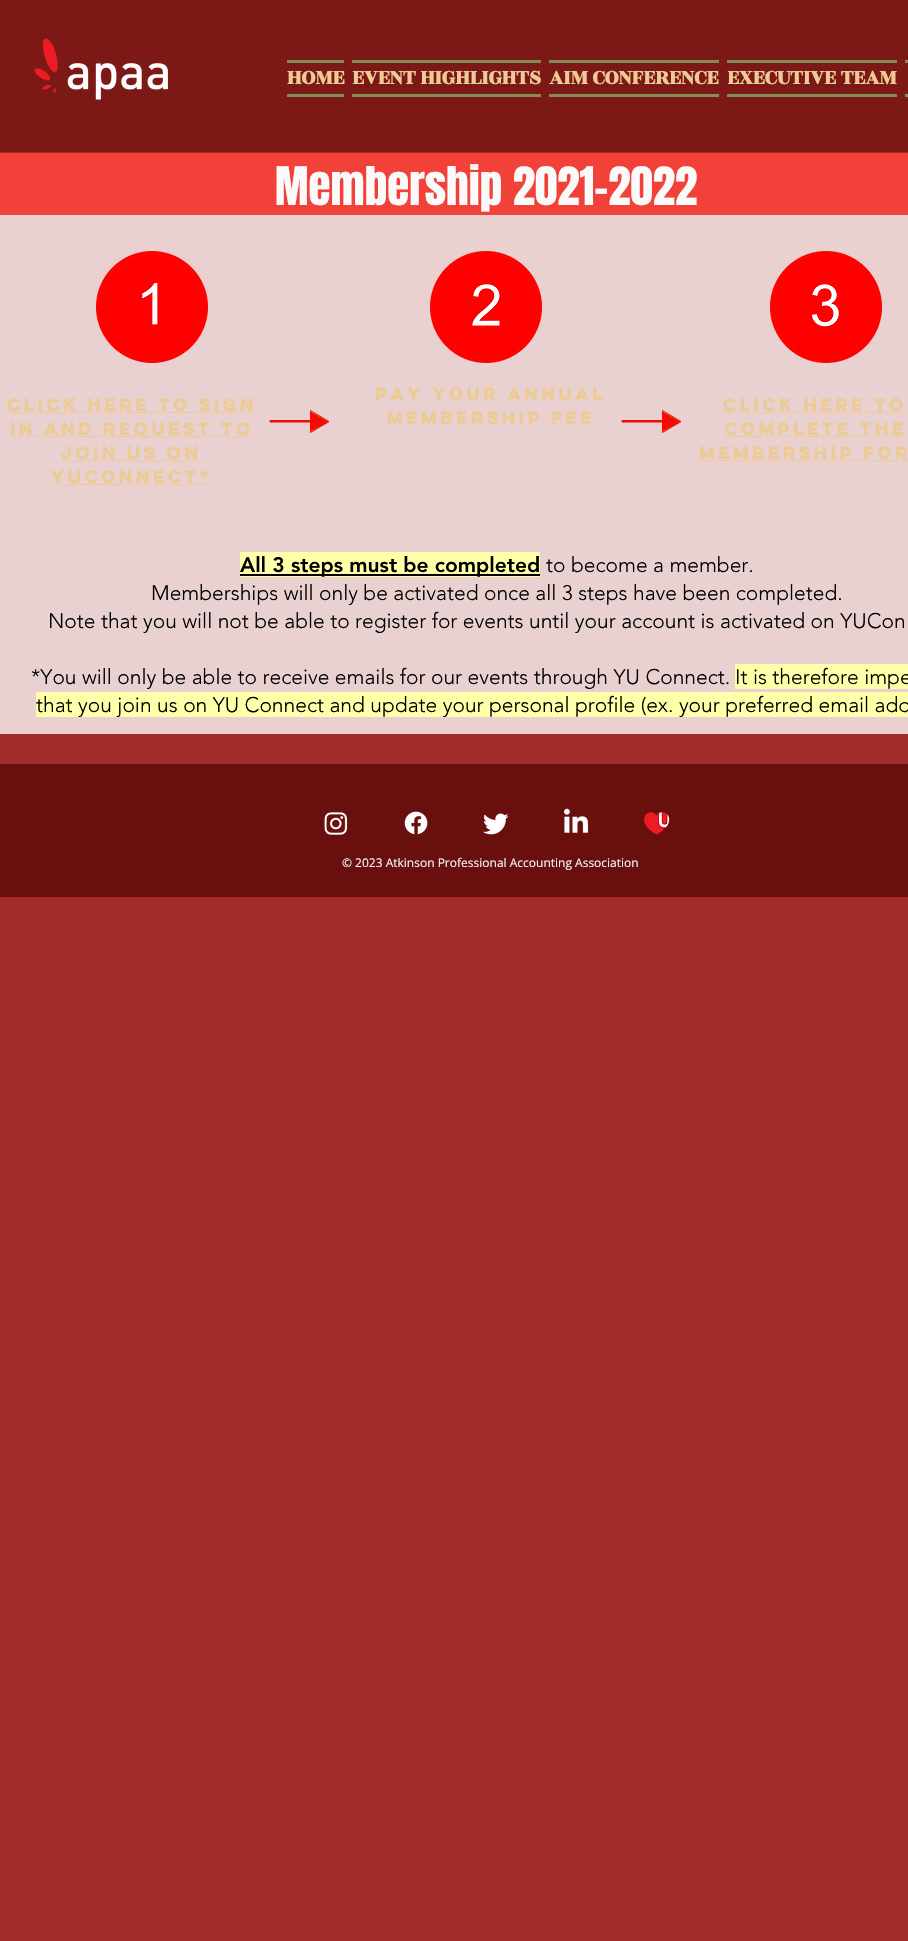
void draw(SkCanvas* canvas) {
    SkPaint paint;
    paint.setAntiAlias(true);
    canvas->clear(0xFFA22C29);
    paint.setColor(0xFF7C1916);
    canvas->drawRect(SkRect::MakeXYWH(0, 0, 908, 152), paint);
    canvas->drawImageRect(SkImages::DeferredFromEncodedData(SkData::MakeFromFileName("img1.png")), SkRect::MakeXYWH(34, 38, 134, 62), SkSamplingOptions());
    paint.setColor(0xFF828D58);
    canvas->drawRect(SkRect::MakeXYWH(287, 60, 57, 3), paint);
    canvas->drawRect(SkRect::MakeXYWH(287, 94, 57, 3), paint);
    SkFont font1(fontMgr->matchFamilyStyle("Rozha One", SkFontStyle::Bold()), 22);
    font1.setSubpixel(true);
    paint.setColor(0xFFEDCB96);
    canvas->drawString("HOME", 287, 84, font1, paint);
    paint.setColor(0xFF828D58);
    canvas->drawRect(SkRect::MakeXYWH(352, 60, 189, 3), paint);
    canvas->drawRect(SkRect::MakeXYWH(352, 94, 189, 3), paint);
    paint.setColor(0xFFEDCB96);
    canvas->drawString("EVENT HIGHLIGHTS", 352, 84, font1, paint);
    paint.setColor(0xFF828D58);
    canvas->drawRect(SkRect::MakeXYWH(549, 60, 170, 3), paint);
    canvas->drawRect(SkRect::MakeXYWH(549, 94, 170, 3), paint);
    paint.setColor(0xFFEDCB96);
    canvas->drawString("AIM CONFERENCE", 549, 84, font1, paint);
    paint.setColor(0xFF828D58);
    canvas->drawRect(SkRect::MakeXYWH(727, 60, 170, 3), paint);
    canvas->drawRect(SkRect::MakeXYWH(727, 94, 170, 3), paint);
    paint.setColor(0xFFEDCB96);
    canvas->drawString("EXECUTIVE TEAM", 727, 84, font1, paint);
    paint.setColor(0xFF828D58);
    canvas->drawRect(SkRect::MakeXYWH(905, 60, 3, 3), paint);
    canvas->drawRect(SkRect::MakeXYWH(905, 94, 3, 3), paint);
    paint.setColor(0xFFF14138);
    canvas->drawRect(SkRect::MakeXYWH(0, 153, 908, 62), paint);
    SkFont font2(fontMgr->matchFamilyStyle("Anton", SkFontStyle::Normal()), 45);
    font2.setSubpixel(true);
    paint.setColor(0xFFFAFAFA);
    canvas->drawString("Membership 2021-2022", 275, 205, font2, paint);
    paint.setColor(0xFFE8D1D0);
    canvas->drawRect(SkRect::MakeXYWH(0, 215, 908, 519), paint);
    canvas->drawImageRect(SkImages::DeferredFromEncodedData(SkData::MakeFromFileName("img2.png")), SkRect::MakeXYWH(96, 251, 112, 112), SkSamplingOptions());
    canvas->drawImageRect(SkImages::DeferredFromEncodedData(SkData::MakeFromFileName("img3.png")), SkRect::MakeXYWH(430, 251, 112, 112), SkSamplingOptions());
    canvas->drawImageRect(SkImages::DeferredFromEncodedData(SkData::MakeFromFileName("img4.png")), SkRect::MakeXYWH(770, 251, 112, 112), SkSamplingOptions());
    SkFont font3(fontMgr->matchFamilyStyle("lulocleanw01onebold", SkFontStyle::Bold()), 16);
    font3.setSubpixel(true);
    paint.setColor(0xFFEDCB96);
    canvas->drawString("Click here to sign", 7, 411, font3, paint);
    canvas->drawRect(SkRect::MakeXYWH(7, 412, 249, 1), paint);
    canvas->drawRect(SkRect::MakeXYWH(10, 436, 243, 1), paint);
    canvas->drawString("in and request to", 10, 435, font3, paint);
    canvas->drawString("join us on", 61, 459, font3, paint);
    canvas->drawRect(SkRect::MakeXYWH(61, 460, 141, 1), paint);
    canvas->drawString("yuconnect*", 51, 483, font3, paint);
    canvas->drawRect(SkRect::MakeXYWH(51, 484, 161, 1), paint);
    paint.setColor(0xFFF50C00);
    canvas->drawPath(SkPathBuilder().moveTo(329, 422).lineTo(310, 411).lineTo(310, 421).lineTo(270, 421).lineTo(270, 422).lineTo(310, 422).lineTo(310, 432).close().detach(), paint);
    paint.setStyle(SkPaint::kStroke_Style);
    paint.setStrokeWidth(1);
    canvas->drawPath(SkPathBuilder().moveTo(329, 421.5f).lineTo(310.5f, 410.5f).lineTo(310.5f, 420.5f).lineTo(270, 420.5f).lineTo(270, 422).lineTo(310.5f, 422).lineTo(310.5f, 432.5f).close().detach(), paint);
    paint.setStyle(SkPaint::kFill_Style);
    paint.setColor(0xFFEDCB96);
    canvas->drawString("Pay your annual", 375, 400, font3, paint);
    canvas->drawString("membership fee", 387, 424, font3, paint);
    paint.setColor(0xFFF50C00);
    canvas->drawPath(SkPathBuilder().moveTo(681, 422).lineTo(662, 411).lineTo(662, 421).lineTo(622, 421).lineTo(622, 422).lineTo(662, 422).lineTo(662, 432).close().detach(), paint);
    paint.setStyle(SkPaint::kStroke_Style);
    canvas->drawPath(SkPathBuilder().moveTo(681, 421.5f).lineTo(662.5f, 410.5f).lineTo(662.5f, 420.5f).lineTo(622, 420.5f).lineTo(622, 422).lineTo(662.5f, 422).lineTo(662.5f, 432.5f).close().detach(), paint);
    paint.setStyle(SkPaint::kFill_Style);
    paint.setColor(0xFFEDCB96);
    canvas->drawString("Click here to", 723, 411, font3, paint);
    canvas->drawRect(SkRect::MakeXYWH(723, 412, 184, 1), paint);
    canvas->drawString("Complete the", 724, 435, font3, paint);
    canvas->drawRect(SkRect::MakeXYWH(724, 436, 182, 1), paint);
    canvas->drawString("membership for", 699, 459, font3, paint);
    canvas->drawRect(SkRect::MakeXYWH(699, 460, 209, 1), paint);
    paint.setColor(0xFFFEFFA8);
    canvas->drawRect(SkRect::MakeXYWH(240, 552, 300, 25), paint);
    paint.setColor(0xFF000000);
    canvas->drawRect(SkRect::MakeXYWH(240, 574, 300, 2), paint);
    SkFont font4(fontMgr->matchFamilyStyle("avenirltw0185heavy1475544", SkFontStyle(900, SkFontStyle::kNormal_Width, SkFontStyle::kUpright_Slant)), 21);
    font4.setSubpixel(true);
    canvas->drawString("All 3 steps must be completed", 240, 572, font4, paint);
    SkFont font5(fontMgr->matchFamilyStyle("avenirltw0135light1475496", SkFontStyle(300, SkFontStyle::kNormal_Width, SkFontStyle::kUpright_Slant)), 21);
    font5.setSubpixel(true);
    canvas->drawString("to become a member.", 546, 572, font5, paint);
    canvas->drawString("Memberships will only be activated once all 3 steps have been completed.", 151, 600, font5, paint);
    canvas->drawString("Note that you will not be able to register for events until your account is activated on YUCon", 48, 628, font5, paint);
    canvas->drawString("*You will only be able to receive emails for our events through YU Connect.", 31, 684, font5, paint);
    paint.setColor(0xFFFEFFA8);
    canvas->drawRect(SkRect::MakeXYWH(735, 664, 173, 25), paint);
    paint.setColor(0xFF000000);
    canvas->drawString("It is therefore impe", 735, 684, font5, paint);
    paint.setColor(0xFFFEFFA8);
    canvas->drawRect(SkRect::MakeXYWH(36, 692, 872, 25), paint);
    paint.setColor(0xFF000000);
    canvas->drawString("that you join us on YU Connect and update your personal profile (ex. your preferred email add", 36, 712, font5, paint);
    paint.setColor(0xFF690F0D);
    canvas->drawRect(SkRect::MakeXYWH(0, 764, 908, 133), paint);
    canvas->drawImageRect(SkImages::DeferredFromEncodedData(SkData::MakeFromFileName("img5.png")), SkRect::MakeXYWH(324, 812, 24, 23), SkSamplingOptions());
    canvas->drawImageRect(SkImages::DeferredFromEncodedData(SkData::MakeFromFileName("img6.png")), SkRect::MakeXYWH(404, 811, 24, 24), SkSamplingOptions());
    canvas->drawImageRect(SkImages::DeferredFromEncodedData(SkData::MakeFromFileName("img7.png")), SkRect::MakeXYWH(483, 813, 26, 22), SkSamplingOptions());
    canvas->drawImageRect(SkImages::DeferredFromEncodedData(SkData::MakeFromFileName("img8.png")), SkRect::MakeXYWH(563, 808, 26, 25), SkSamplingOptions());
    canvas->drawImageRect(SkImages::DeferredFromEncodedData(SkData::MakeFromFileName("img9.png")), SkRect::MakeXYWH(644, 812, 26, 23), SkSamplingOptions());
    SkFont font6(fontMgr->matchFamilyStyle("Open Sans", SkFontStyle::Normal()), 12);
    font6.setSubpixel(true);
    paint.setColor(0xFFF3F4F5);
    canvas->drawString("© 2023 Atkinson Professional Accounting Association", 342, 867, font6, paint);
}
